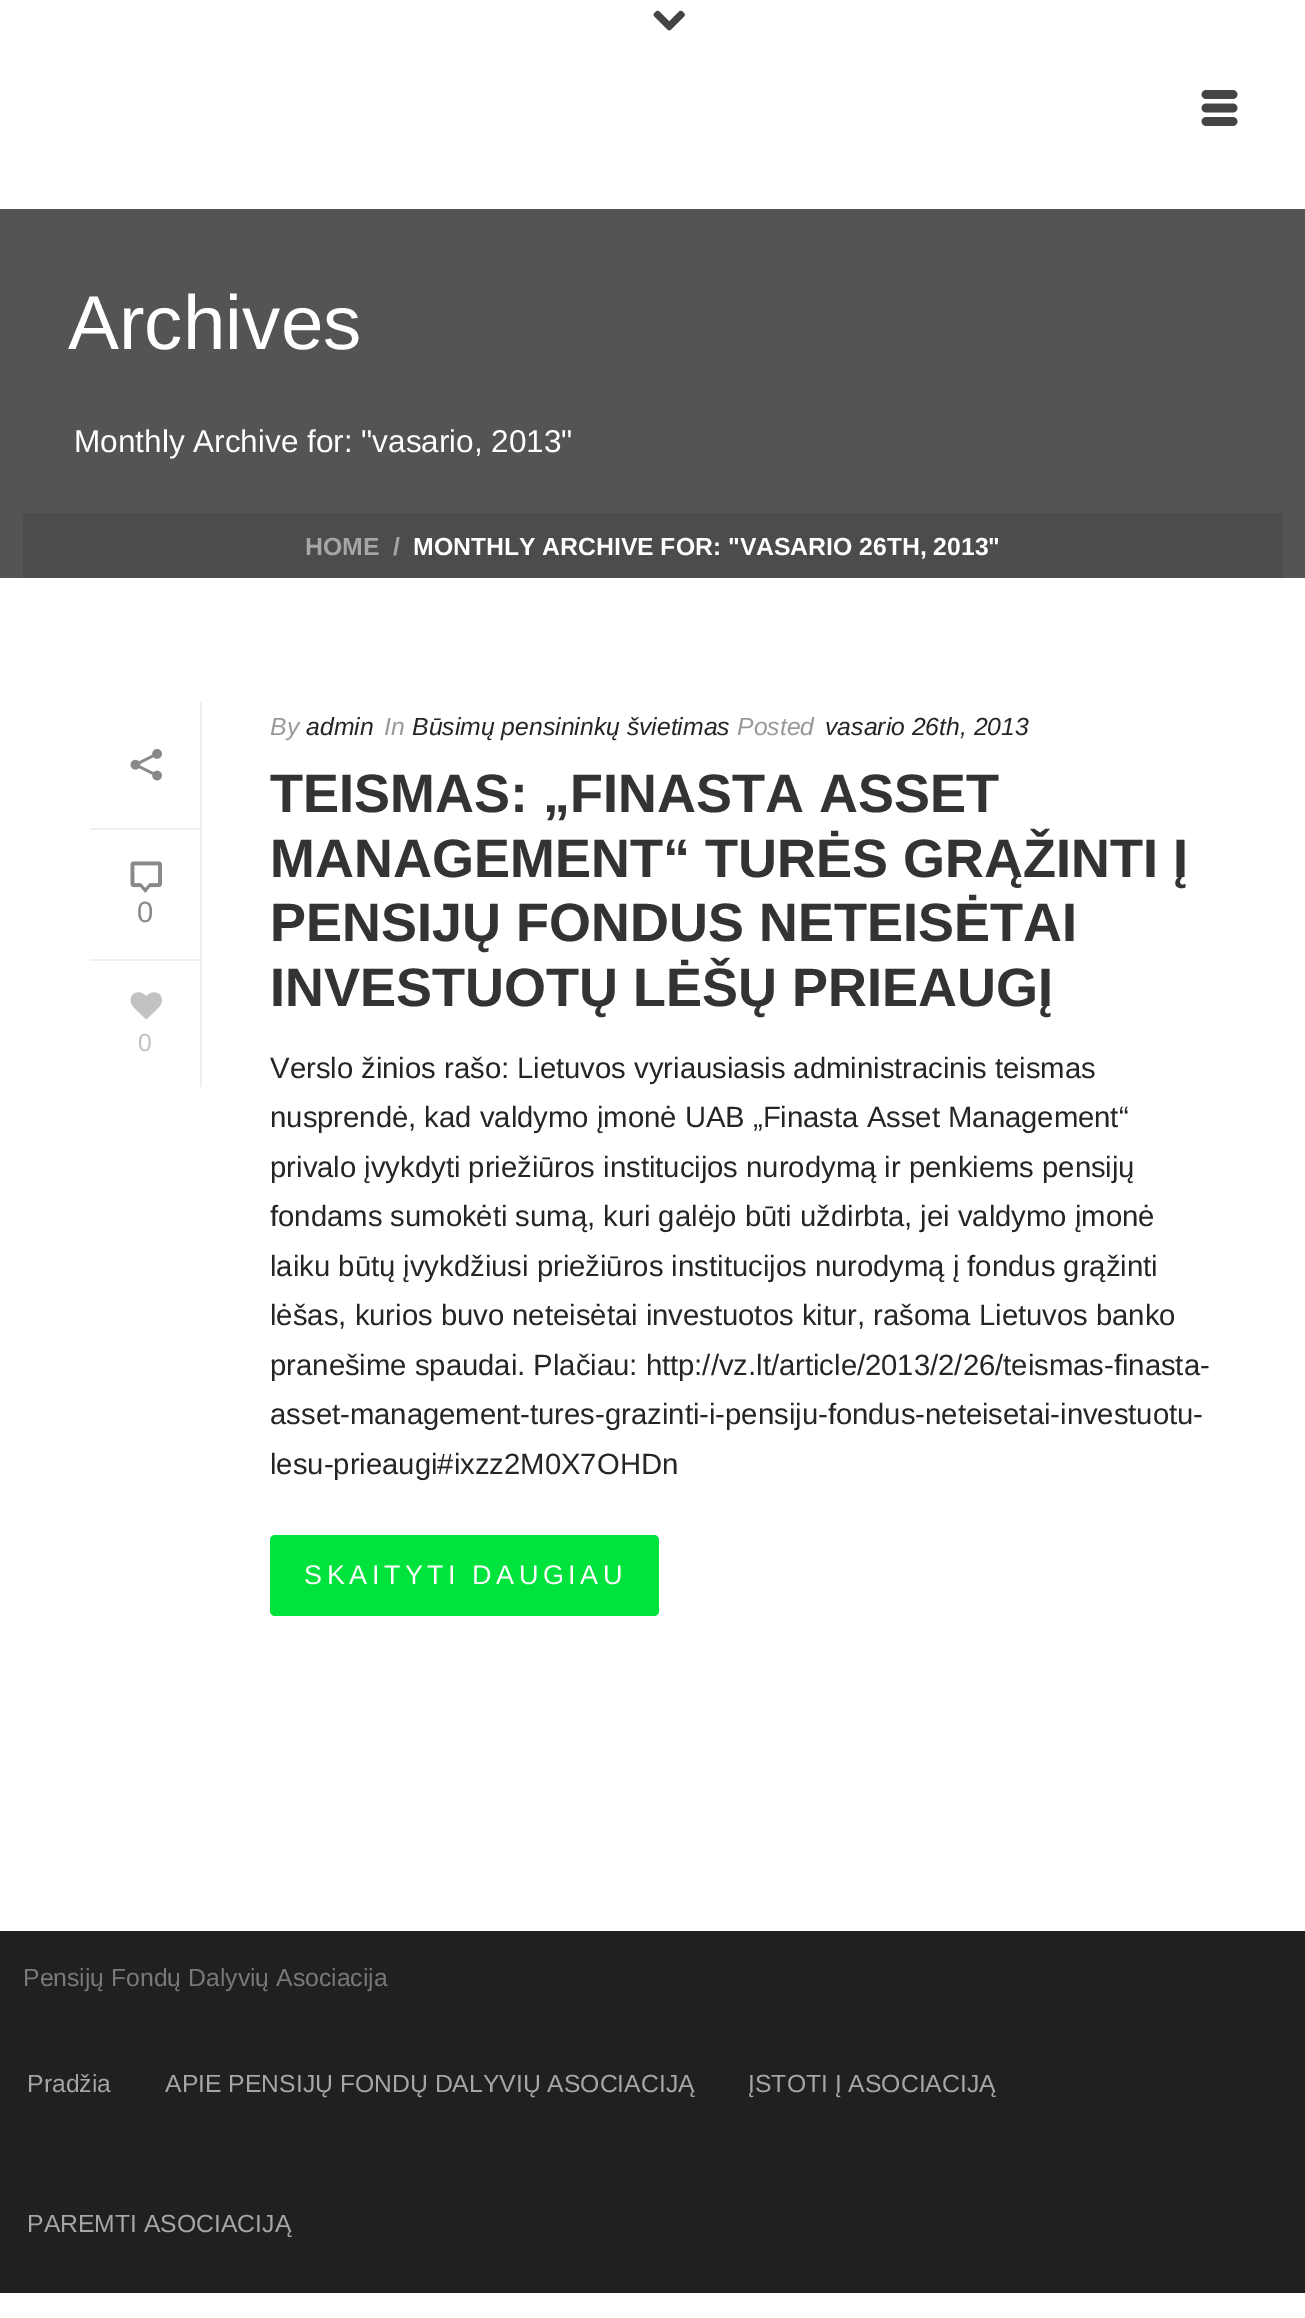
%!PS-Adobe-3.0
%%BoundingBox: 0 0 1305 2318
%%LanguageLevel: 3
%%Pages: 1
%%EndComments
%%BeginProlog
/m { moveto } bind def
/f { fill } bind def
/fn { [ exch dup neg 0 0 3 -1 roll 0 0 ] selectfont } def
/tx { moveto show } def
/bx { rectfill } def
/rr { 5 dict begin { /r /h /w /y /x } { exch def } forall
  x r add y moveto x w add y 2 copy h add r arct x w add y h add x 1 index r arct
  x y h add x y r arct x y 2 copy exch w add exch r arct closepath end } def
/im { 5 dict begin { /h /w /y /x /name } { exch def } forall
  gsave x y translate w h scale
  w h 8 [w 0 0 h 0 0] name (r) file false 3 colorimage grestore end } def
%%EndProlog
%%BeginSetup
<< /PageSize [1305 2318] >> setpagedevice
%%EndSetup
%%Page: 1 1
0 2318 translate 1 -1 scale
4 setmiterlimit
1 setgray
0 0 1305 2318 bx
0.329 setgray
0 209 1305 369 bx
(image0.raw) 653 10 32 21 im
(image1.raw) 1201 90 37 36 im
/LiberationSans-Regular 76.5 fn
1 setgray
(Archives) 68 349 tx
/LiberationSans-Regular 31.5 fn
(Monthly Archive for: "vasario, 2013") 74 452 tx
0.298 setgray
23 513 1260 65 bx
/LiberationSans-Bold 24.75 fn
0.651 setgray
(HOME) 305 555 tx
(/) 393 555 tx
1 setgray
(MONTHLY ARCHIVE FOR: "VASARIO 26TH, 2013") 413 555 tx
0.937 setgray
200 702 2 385 bx
90 828 110 2 bx
(image2.raw) 130 749 32 32 im
90 959 110 2 bx
(image3.raw) 130 861 32 32 im
/LiberationSans-Regular 29.25 fn
0.537 setgray
(0) 137 922 tx
(image4.raw) 130 992 32 28 im
/LiberationSans-Regular 24.75 fn
0.761 setgray
(0) 138 1051 tx
/LiberationSans-Italic 24.75 fn
0.6 setgray
(By) 270 735 tx
0.145 setgray
(admin) 306 735 tx
0.6 setgray
(In) 384 735 tx
0.145 setgray
(Būsimų pensininkų švietimas) 412 735 tx
0.6 setgray
(Posted) 737 735 tx
0.145 setgray
(vasario 26th, 2013) 825 735 tx
/LiberationSans-Bold 54 fn
0.2 setgray
(TEISMAS: „FINASTA ASSET) 270 812 tx
(MANAGEMENT“ TURĖS GRĄŽINTI Į) 270 877 tx
(PENSIJŲ FONDUS NETEISĖTAI) 270 941 tx
(INVESTUOTŲ LĖŠŲ PRIEAUGĮ) 270 1006 tx
/LiberationSans-Regular 29.25 fn
0.145 setgray
(Verslo žinios rašo: Lietuvos vyriausiasis administracinis teismas) 270 1078 tx
(nusprendė, kad valdymo įmonė UAB „Finasta Asset Management“) 270 1127 tx
(privalo įvykdyti priežiūros institucijos nurodymą ir penkiems pensijų) 270 1177 tx
(fondams sumokėti sumą, kuri galėjo būti uždirbta, jei valdymo įmonė) 270 1226 tx
(laiku būtų įvykdžiusi priežiūros institucijos nurodymą į fondus grąžinti) 270 1276 tx
(lėšas, kurios buvo neteisėtai investuotos kitur, rašoma Lietuvos banko) 270 1325 tx
(pranešime spaudai. Plačiau: http://vz.lt/article/2013/2/26/teismas-finasta-) 270 1375 tx
(asset-management-tures-grazinti-i-pensiju-fondus-neteisetai-investuotu-) 270 1424 tx
(lesu-prieaugi#ixzz2M0X7OHDn) 270 1474 tx
0 0.886 0.235 setrgbcolor
270 1535 389 81 5 rr f
/LiberationSans-Regular 27 fn
1 setgray
304 1584 m 4.5 0 (SKAITYTI DAUGIAU) ashow
0.125 setgray
0 1931 1305 362 bx
/LiberationSans-Regular 24.75 fn
0.475 setgray
(Pensijų Fondų Dalyvių Asociacija) 23 1986 tx
0.651 setgray
(Pradžia) 27 2092 tx
(APIE PENSIJŲ FONDŲ DALYVIŲ ASOCIACIJĄ) 165 2092 tx
(ĮSTOTI Į ASOCIACIJĄ) 748 2092 tx
(PAREMTI ASOCIACIJĄ) 27 2232 tx
showpage
%%EOF
